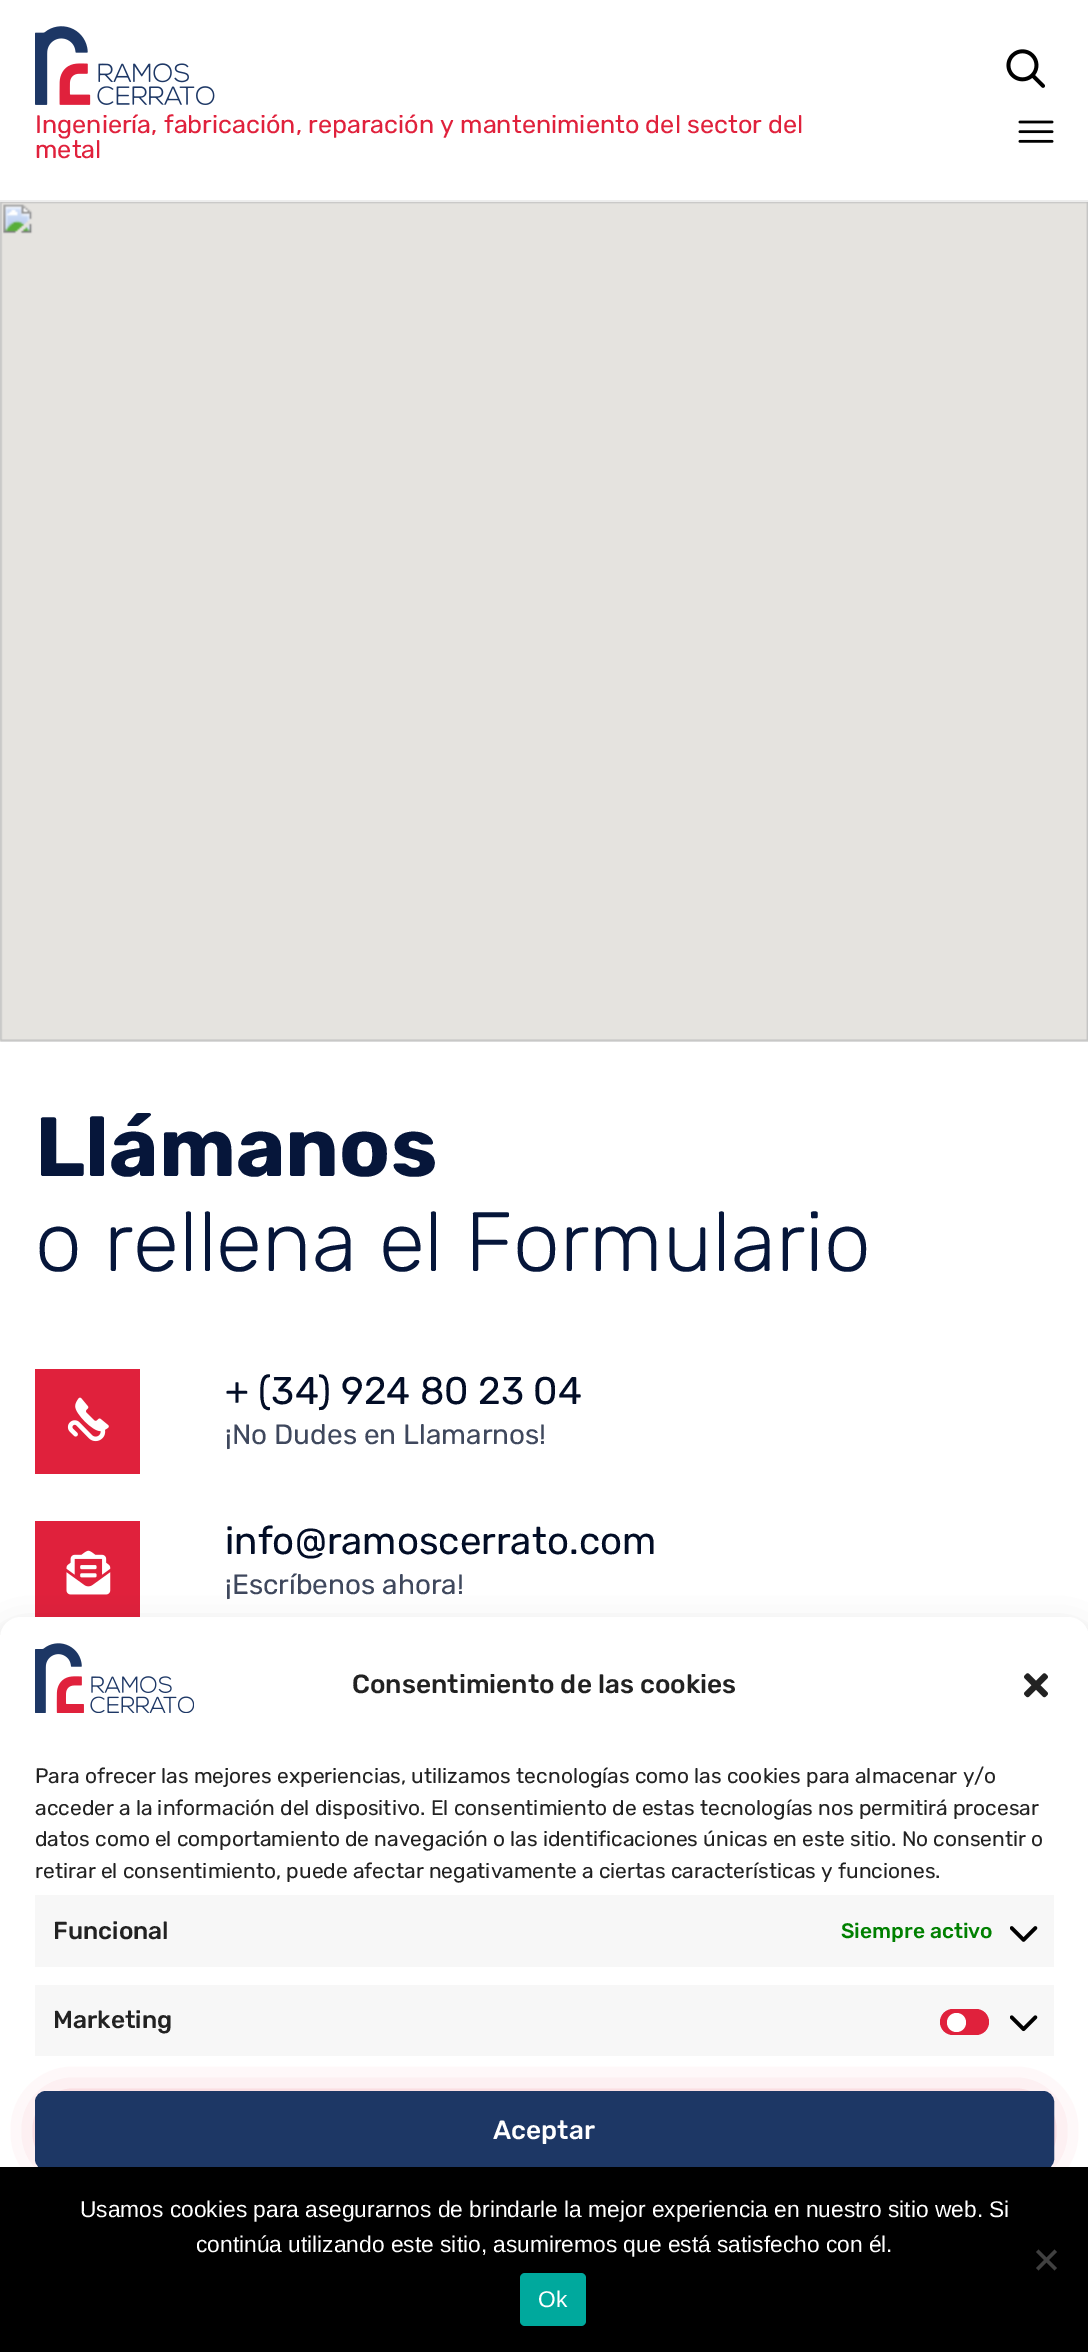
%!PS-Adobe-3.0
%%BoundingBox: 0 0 1088 2352
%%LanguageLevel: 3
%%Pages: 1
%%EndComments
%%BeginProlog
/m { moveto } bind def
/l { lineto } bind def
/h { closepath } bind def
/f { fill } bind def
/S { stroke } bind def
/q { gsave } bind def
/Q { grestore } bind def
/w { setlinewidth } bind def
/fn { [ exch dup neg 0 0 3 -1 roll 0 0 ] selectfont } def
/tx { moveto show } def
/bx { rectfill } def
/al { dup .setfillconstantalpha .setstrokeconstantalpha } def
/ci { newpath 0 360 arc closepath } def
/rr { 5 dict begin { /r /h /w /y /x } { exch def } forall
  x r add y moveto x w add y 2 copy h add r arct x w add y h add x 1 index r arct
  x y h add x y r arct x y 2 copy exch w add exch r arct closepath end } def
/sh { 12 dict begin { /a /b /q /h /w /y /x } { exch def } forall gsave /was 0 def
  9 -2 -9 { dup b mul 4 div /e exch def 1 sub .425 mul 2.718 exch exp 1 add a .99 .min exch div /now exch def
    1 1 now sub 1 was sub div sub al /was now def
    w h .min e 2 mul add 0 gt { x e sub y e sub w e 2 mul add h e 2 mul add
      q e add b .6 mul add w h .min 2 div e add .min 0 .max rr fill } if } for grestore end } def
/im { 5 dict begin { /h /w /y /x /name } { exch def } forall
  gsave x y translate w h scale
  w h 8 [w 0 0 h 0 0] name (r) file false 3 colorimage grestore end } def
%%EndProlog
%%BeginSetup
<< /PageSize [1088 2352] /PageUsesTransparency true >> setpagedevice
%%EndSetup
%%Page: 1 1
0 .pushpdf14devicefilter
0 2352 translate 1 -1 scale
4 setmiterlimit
1 setgray
0 0 1088 2352 bx
0.929 setgray
0 200 1088 2 bx
(image0.raw) 35 26 180 79 im
/Rubik-Regular 25.2 fn
0.878 0.129 0.235 setrgbcolor
(Ingeniería, fabricación, reparación y mantenimiento del sector del) 35 133 tx
(metal) 35 158 tx
(image1.raw) 1006 49 39 39 im
(image2.raw) 1018 120 36 23 im
(image3.raw) 0 202 1088 840 im
/Rubik-Bold 84 fn
0.024 0.086 0.227 setrgbcolor
(Llámanos) 35 1176 tx
/Rubik-Light 84 fn
(o rellena el Formulario) 35 1271 tx
0.878 0.129 0.235 setrgbcolor
35 1369 105 105 bx
(image4.raw) 67 1397 42 45 im
35 1521 105 96 bx
(image5.raw) 66 1550 45 45 im
/Rubik-Regular 38.5 fn
0.008 0.051 0.149 setrgbcolor
(+ \(34\) 924 80 23 04) 225 1404 tx
/Rubik-Regular 28 fn
0.247 0.282 0.365 setrgbcolor
(¡No Dudes en Llamarnos!) 225 1444 tx
/Rubik-Regular 38.5 fn
0.008 0.051 0.149 setrgbcolor
(info@ramoscerrato.com) 225 1554 tx
/Rubik-Regular 28 fn
0.247 0.282 0.365 setrgbcolor
(¡Escríbenos ahora!) 225 1594 tx
0 setgray
0 1628 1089 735 21 5 0.23 sh
0 1635 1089 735 21 17.5 0.19 sh
1 setgray
0 1617 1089 735 21 rr f
(image6.raw) 35 1643 159 70 im
/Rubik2-Light 26.25 fn
0.133 setgray
(Consentimiento de las cookies) 352 1693 tx
(image7.raw) 1024 1673 24 25 im
/Rubik-Regular 21 fn
(Para ofrecer las mejores experiencias, utilizamos tecnologías como las cookies para almacenar y/o) 35 1783 tx
(acceder a la información del dispositivo. El consentimiento de estas tecnologías nos permitirá procesar) 35 1815 tx
(datos como el comportamiento de navegación o las identificaciones únicas en este sitio. No consentir o) 35 1846 tx
(retirar el consentimiento, puede afectar negativamente a ciertas características y funciones.) 35 1878 tx
0.969 setgray
35 1895 1019 72 bx
/Rubik2-Light 24.5 fn
0.133 setgray
(Funcional) 53 1939 tx
/Rubik2-Light 21 fn
0 0.502 0 setrgbcolor
(Siempre activo) 841 1938 tx
(image8.raw) 1010 1926 28 16 im
0.969 setgray
35 1985 1019 71 bx
/Rubik2-Light 24.5 fn
0.133 setgray
(Marketing) 53 2028 tx
0.878 0.129 0.235 setrgbcolor
940 2009 49 26 13 rr f
1 setgray
956.5 2022.5 9.5 ci f
(image9.raw) 1010 2015 28 17 im
0.878 0.129 0.235 setrgbcolor
60 2116 969 30 0 22 1 sh
0.114 0.216 0.396 setrgbcolor
36 2092 1017 77 10 rr q f Q
2 w
S
/Rubik2-Light 26.25 fn
1 setgray
(Aceptar) 493 2139 tx
0 setgray
0 2167 1088 185 bx
/LiberationSans-Regular 22.75 fn
1 setgray
(Usamos cookies para asegurarnos de brindarle la mejor experiencia en nuestro sitio web. Si) 80 2217 tx
(continúa utilizando este sitio, asumiremos que está satisfecho con él.) 196 2252 tx
0.251 setgray
1054.5 2249.5 m 1057 2252 l 1038.5 2270.5 l 1036 2268 l h f
1036 2252 m 1038.5 2249.5 l 1057 2268 l 1054.5 2270.5 l h f
0 0.663 0.616 setrgbcolor
520 2273 66 53 5 rr f
1 setgray
(Ok) 538 2307 tx
.poppdf14devicefilter showpage
%%EOF
